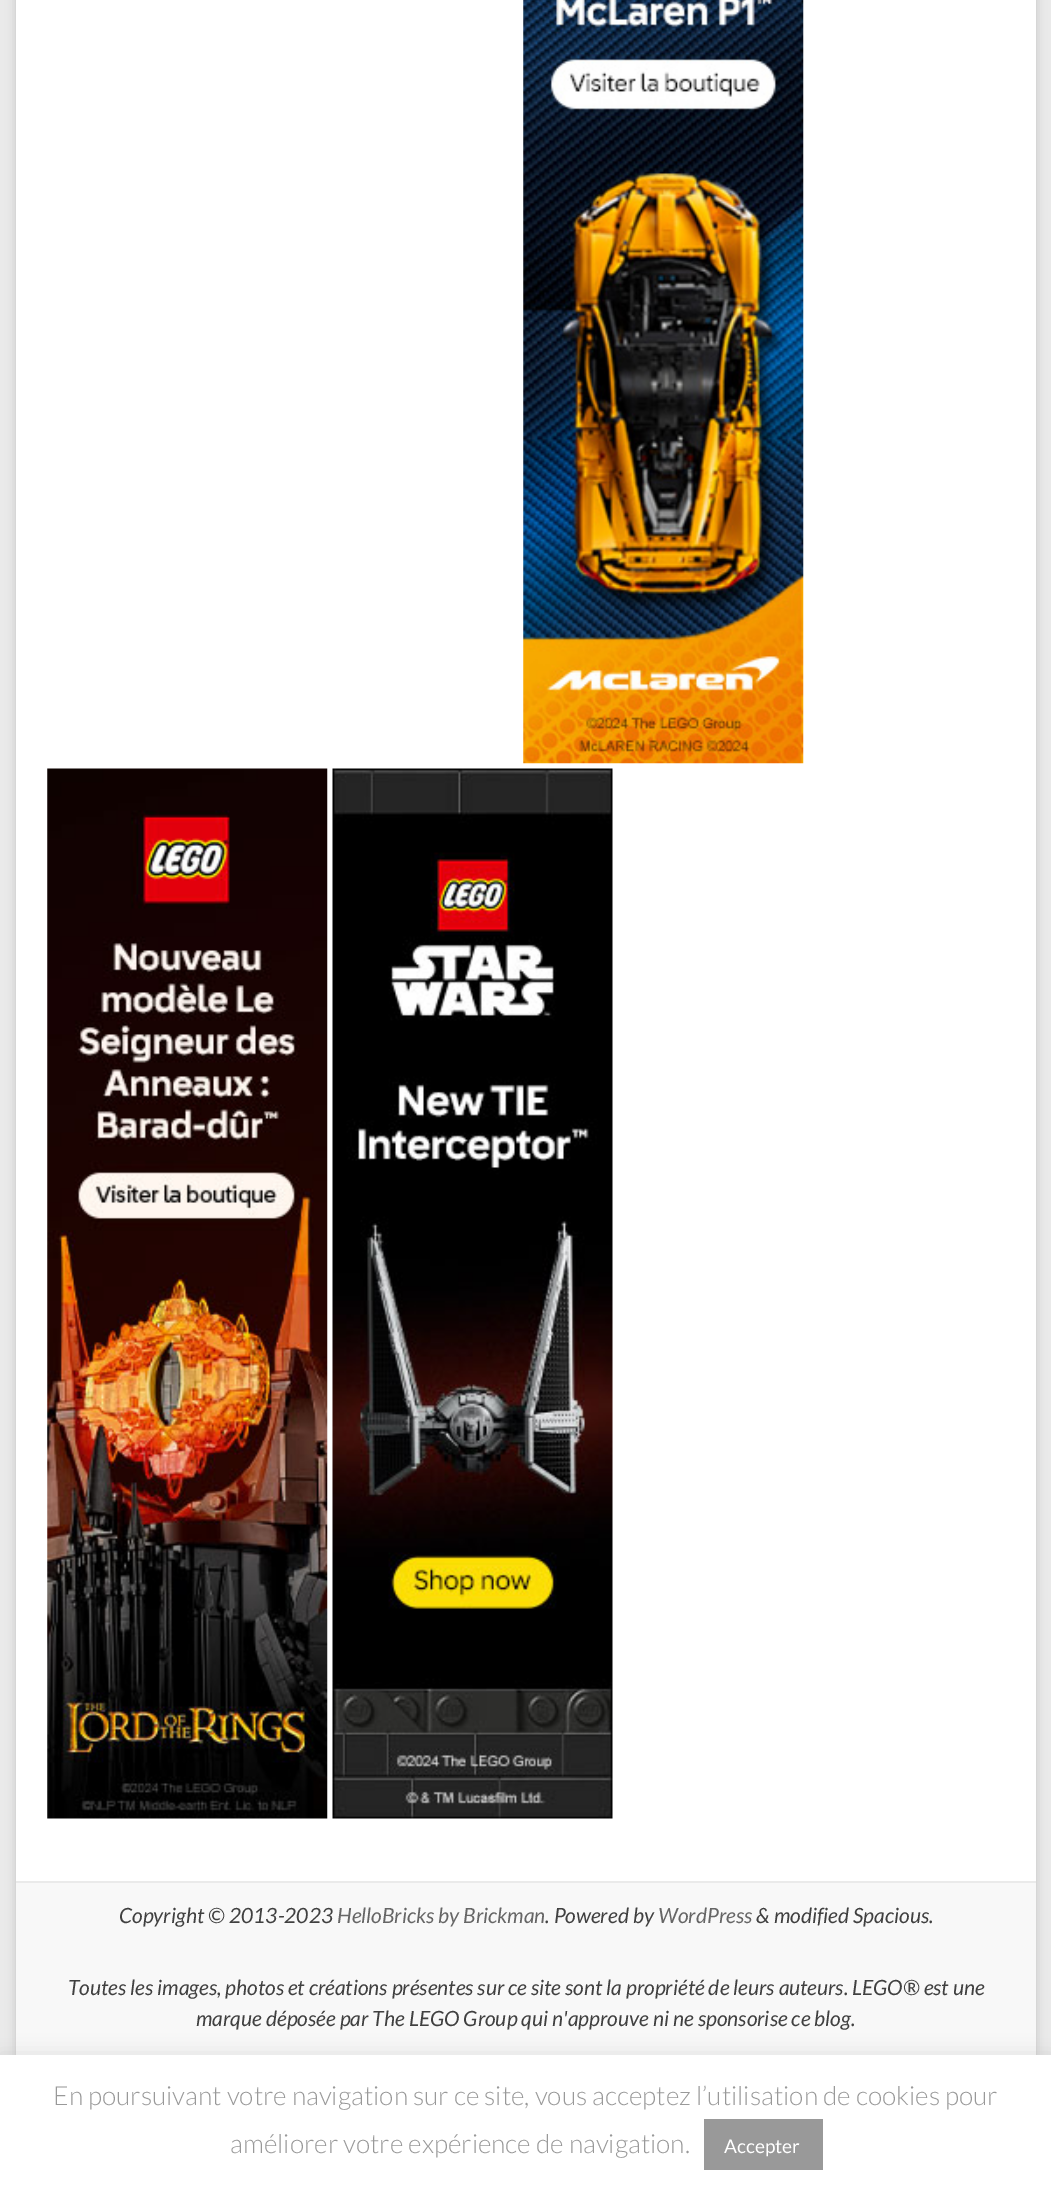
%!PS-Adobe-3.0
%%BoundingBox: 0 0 1051 2190
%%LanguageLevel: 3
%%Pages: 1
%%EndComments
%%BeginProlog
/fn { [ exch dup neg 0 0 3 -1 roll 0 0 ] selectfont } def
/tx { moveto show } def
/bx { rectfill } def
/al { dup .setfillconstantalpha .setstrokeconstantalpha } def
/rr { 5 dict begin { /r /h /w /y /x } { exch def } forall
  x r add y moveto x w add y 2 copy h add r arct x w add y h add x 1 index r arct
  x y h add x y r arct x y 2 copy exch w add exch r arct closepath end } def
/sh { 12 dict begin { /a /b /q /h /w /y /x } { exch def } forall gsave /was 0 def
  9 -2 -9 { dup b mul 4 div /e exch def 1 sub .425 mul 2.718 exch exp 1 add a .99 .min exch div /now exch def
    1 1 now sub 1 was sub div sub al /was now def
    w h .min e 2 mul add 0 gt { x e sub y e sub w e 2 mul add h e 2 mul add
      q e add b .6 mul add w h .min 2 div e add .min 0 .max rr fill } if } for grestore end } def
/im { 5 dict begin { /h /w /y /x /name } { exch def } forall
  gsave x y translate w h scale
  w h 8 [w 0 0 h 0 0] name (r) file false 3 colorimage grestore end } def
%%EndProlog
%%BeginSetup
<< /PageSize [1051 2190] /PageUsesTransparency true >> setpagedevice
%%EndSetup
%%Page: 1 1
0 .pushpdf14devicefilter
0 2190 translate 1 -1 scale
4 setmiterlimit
0.918 setgray
0 0 1051 2190 bx
0.392 setgray
16 -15 1020 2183 0 5 0.3 sh
1 setgray
16 0 1020 1881 bx
(image0.raw) 523 0 281 764 im
(image1.raw) 47 768 281 1051 im
(image2.raw) 332 768 281 1051 im
0.973 setgray
16 1883 1020 172 bx
0.918 setgray
16 1881 1020 2 bx
/Lato-Italic 21 fn
0.251 setgray
(Copyright © 2013-2023) 119 1923 tx
0.4 setgray
(HelloBricks by Brickman) 337 1923 tx
0.251 setgray
(. Powered by) 545 1923 tx
0.4 setgray
(WordPress) 658 1923 tx
0.251 setgray
(& modified Spacious.) 756 1923 tx
(Toutes les images, photos et créations présentes sur ce site sont la propriété de leurs auteurs. LEGO® est une) 68 1995 tx
(marque déposée par The LEGO Group qui n'approuve ni ne sponsorise ce blog.) 196 2026 tx
0.675 0.671 0.671 setrgbcolor
0 2053 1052 136 0 9 0.3 sh
1 setgray
0 2055 1051 135 bx
/Lato-Light 26.25 fn
0.6 setgray
(En poursuivant votre navigation sur ce site, vous acceptez l’utilisation de cookies pour) 53 2105 tx
(améliorer votre expérience de navigation.) 230 2153 tx
704 2119 119 51 bx
/Lato-Regular 19 fn
1 setgray
(Accepter) 724 2153 tx
.poppdf14devicefilter showpage
%%EOF
